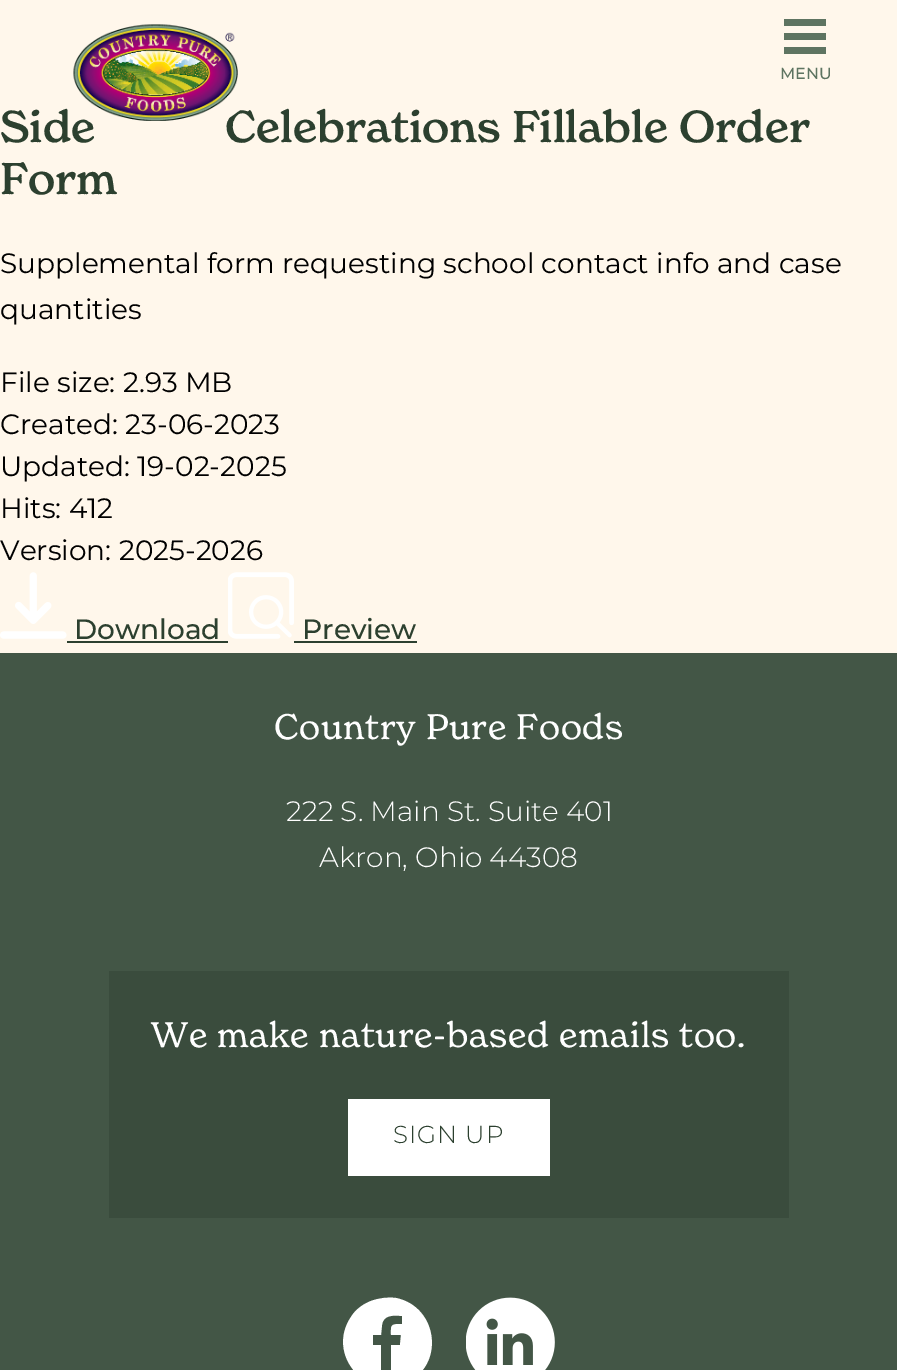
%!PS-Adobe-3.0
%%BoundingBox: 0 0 897 1370
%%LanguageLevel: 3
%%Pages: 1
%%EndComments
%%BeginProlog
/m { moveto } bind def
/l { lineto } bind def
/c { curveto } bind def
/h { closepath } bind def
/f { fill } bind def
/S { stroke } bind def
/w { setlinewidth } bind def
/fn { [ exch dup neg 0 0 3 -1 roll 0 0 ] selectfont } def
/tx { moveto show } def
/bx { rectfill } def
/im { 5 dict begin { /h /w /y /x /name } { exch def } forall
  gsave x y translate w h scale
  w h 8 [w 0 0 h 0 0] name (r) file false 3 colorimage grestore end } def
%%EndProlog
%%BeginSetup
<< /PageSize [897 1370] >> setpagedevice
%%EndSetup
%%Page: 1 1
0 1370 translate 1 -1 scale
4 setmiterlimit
1 0.969 0.922 setrgbcolor
0 0 897 1370 bx
/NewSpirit-Medium 43.75 fn
0.173 0.251 0.184 setrgbcolor
(Side) 0 142 tx
(Celebrations Fillable Order) 225 142 tx
1 0.969 0.922 setrgbcolor
21 w
156 19 m 207 19 248.5 43 248.5 72.5 c 248.5 102 207 126 156 126 c 104.5 126 63 102 63 72.5 c 63 43 104.5 19 156 19 c h S
(image0.raw) 73 24 165 97 im
0.369 0.455 0.38 setrgbcolor
784 33 42 7 bx
784 19 42 7 bx
784 47 42 7 bx
/Montserrat-Medium 16 fn
(MENU) 780 79 tx
/NewSpirit-Medium 43.75 fn
0.173 0.251 0.184 setrgbcolor
(Form) 0 194 tx
/Montserrat-Regular 28 fn
0 setgray
(Supplemental form requesting school contact info and case) 0 273 tx
(quantities) 0 319 tx
(File size: 2.93 MB) 0 392 tx
(Created: 23-06-2023) 0 434 tx
(Updated: 19-02-2025) 0 476 tx
(Hits: 412) 0 518 tx
(Version: 2025-2026) 0 560 tx
(image1.raw) 0 572 67 67 im
/Montserrat-Medium 28 fn
0.173 0.251 0.184 setrgbcolor
(Download) 74 639 tx
67 641 161 2 bx
(image2.raw) 228 572 66 67 im
(Preview) 302 639 tx
294 641 123 2 bx
0.263 0.337 0.275 setrgbcolor
0 653 897 717 bx
/NewSpirit-Regular 35 fn
1 setgray
274 739 m 0.7 0 (Country Pure Foods) ashow
/Montserrat-Light 28 fn
(222 S. Main St. Suite 401) 286 821 tx
(Akron, Ohio 44308) 319 867 tx
0.227 0.298 0.239 setrgbcolor
109 971 680 247 bx
/NewSpirit-Regular 35 fn
1 setgray
151 1047 m 0.7 0 (We make nature-based emails too.) ashow
348 1099 202 77 bx
/Montserrat-Light 24.5 fn
0.173 0.251 0.184 setrgbcolor
393 1143 m 1 0 (SIGN UP) ashow
1 setgray
381 1335 m 382 1325 l 383 1315 393 1315 402 1316 c 402 1324 l 390 1324 391 1325 391 1335 c 401 1335 l 400 1345 l 391 1345 l 391 1370 l 381 1370 l 381 1345 l 373 1345 l 373 1335 l h 405 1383 m 445 1367 439 1307 396 1298 c 388 1297 379 1298 371 1301 c 363 1304 355 1310 351 1317 c 326 1354 365 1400 405 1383 c h f
(image3.raw) 466 1297 89 73 im
showpage
%%EOF
